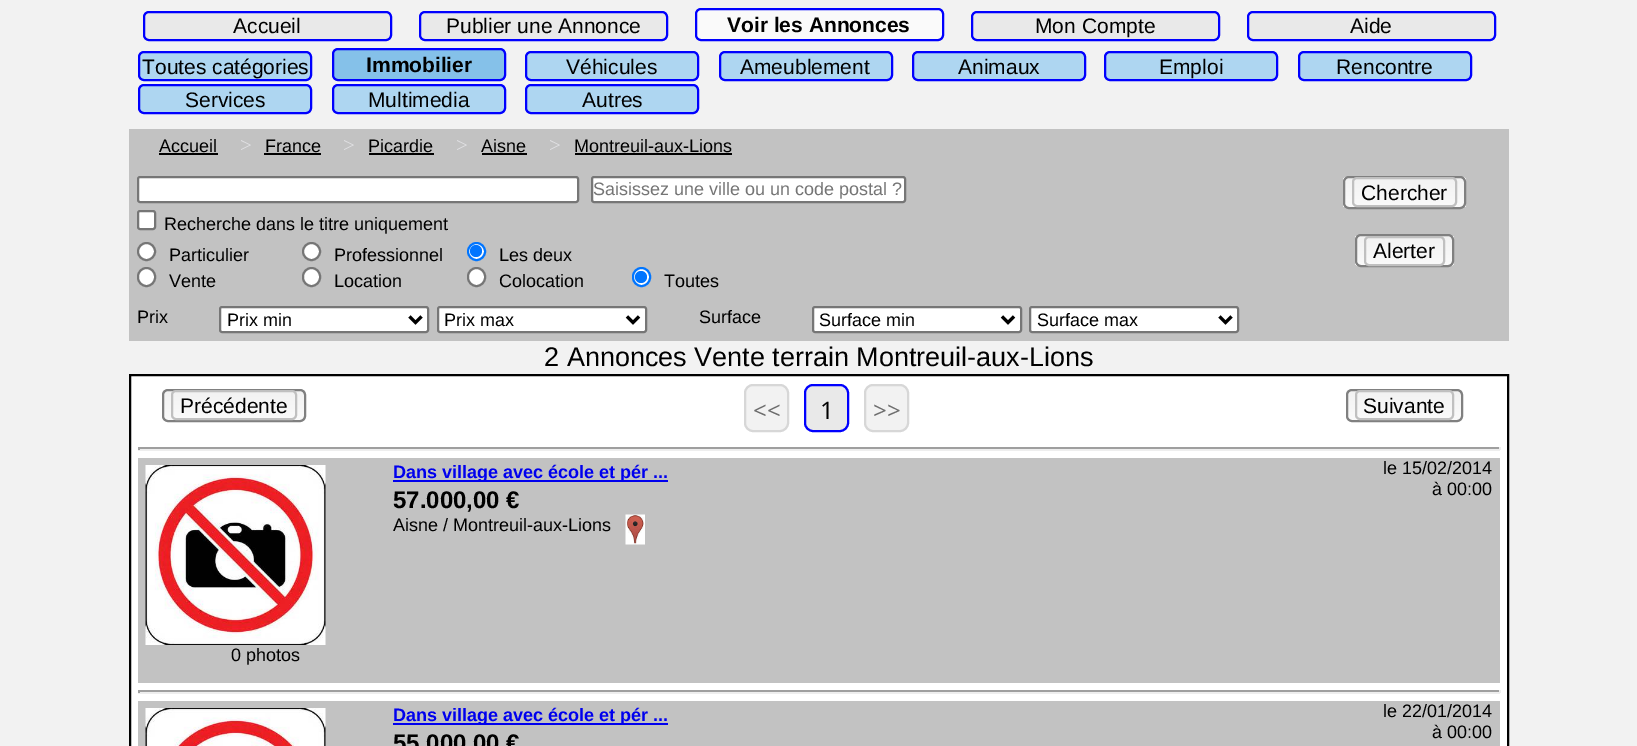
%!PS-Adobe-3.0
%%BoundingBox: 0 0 1637 746
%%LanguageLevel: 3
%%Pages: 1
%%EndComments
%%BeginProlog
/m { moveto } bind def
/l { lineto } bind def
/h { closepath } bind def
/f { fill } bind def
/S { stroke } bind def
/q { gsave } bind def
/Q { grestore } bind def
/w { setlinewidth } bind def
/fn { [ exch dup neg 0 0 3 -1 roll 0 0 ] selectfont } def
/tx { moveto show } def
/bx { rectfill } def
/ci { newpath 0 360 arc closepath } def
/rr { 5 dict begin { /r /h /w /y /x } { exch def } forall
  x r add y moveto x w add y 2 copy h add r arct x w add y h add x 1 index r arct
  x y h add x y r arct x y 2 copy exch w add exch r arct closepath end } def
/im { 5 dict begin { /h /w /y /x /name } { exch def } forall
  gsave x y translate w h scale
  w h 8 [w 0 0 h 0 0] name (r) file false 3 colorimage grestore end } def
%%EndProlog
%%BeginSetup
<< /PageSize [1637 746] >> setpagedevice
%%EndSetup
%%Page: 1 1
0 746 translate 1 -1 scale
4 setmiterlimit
0.949 setgray
0 0 1637 746 bx
0.914 setgray
144 12 247 28 5 rr q f Q
0 0 1 setrgbcolor
2 w
S
/LiberationSans-Regular 21 fn
0 setgray
(Accueil) 233 33 tx
0.914 setgray
420 12 247 28 5 rr q f Q
0 0 1 setrgbcolor
S
0 setgray
(Publier une Annonce) 446 33 tx
0.98 setgray
696 9 247 31 5 rr q f Q
0 0 1 setrgbcolor
S
/LiberationSans-Bold 21 fn
0 setgray
(Voir les Annonces) 727 32 tx
0.914 setgray
972 12 247 28 5 rr q f Q
0 0 1 setrgbcolor
S
/LiberationSans-Regular 21 fn
0 setgray
(Mon Compte) 1035 33 tx
0.914 setgray
1248 12 247 28 5 rr q f Q
0 0 1 setrgbcolor
S
0 setgray
(Aide) 1350 33 tx
0.682 0.839 0.945 setrgbcolor
139 52 172 28 5 rr q f Q
0 0 1 setrgbcolor
S
0 setgray
(Toutes catégories) 142 74 tx
0.522 0.757 0.914 setrgbcolor
333 49 172 31 5 rr q f Q
0 0 1 setrgbcolor
S
/LiberationSans-Bold 21 fn
0 setgray
(Immobilier) 366 72 tx
0.682 0.839 0.945 setrgbcolor
526 52 172 28 5 rr q f Q
0 0 1 setrgbcolor
S
/LiberationSans-Regular 21 fn
0 setgray
(Véhicules) 566 74 tx
0.682 0.839 0.945 setrgbcolor
720 52 172 28 5 rr q f Q
0 0 1 setrgbcolor
S
0 setgray
(Ameublement) 740 74 tx
0.682 0.839 0.945 setrgbcolor
913 52 172 28 5 rr q f Q
0 0 1 setrgbcolor
S
0 setgray
(Animaux) 958 74 tx
0.682 0.839 0.945 setrgbcolor
1105 52 172 28 5 rr q f Q
0 0 1 setrgbcolor
S
0 setgray
(Emploi) 1159 74 tx
0.682 0.839 0.945 setrgbcolor
1299 52 172 28 5 rr q f Q
0 0 1 setrgbcolor
S
0 setgray
(Rencontre) 1336 74 tx
0.682 0.839 0.945 setrgbcolor
139 85 172 28 5 rr q f Q
0 0 1 setrgbcolor
S
0 setgray
(Services) 185 107 tx
0.682 0.839 0.945 setrgbcolor
333 85 172 28 5 rr q f Q
0 0 1 setrgbcolor
S
0 setgray
(Multimedia) 368 107 tx
0.682 0.839 0.945 setrgbcolor
526 85 172 28 5 rr q f Q
0 0 1 setrgbcolor
S
0 setgray
(Autres) 582 107 tx
0.761 setgray
129 129 1380 212 bx
/LiberationSans-Regular 18 fn
0 setgray
(Accueil) 159 152 tx
159 153 59 2 bx
/LiberationSerif-Regular 21 fn
0.878 0.878 0.89 setrgbcolor
(>) 240 152 tx
/LiberationSans-Regular 18 fn
0 setgray
(France) 265 152 tx
264 153 57 2 bx
/LiberationSerif-Regular 21 fn
0.878 0.878 0.89 setrgbcolor
(>) 343 152 tx
/LiberationSans-Regular 18 fn
0 setgray
(Picardie) 368 152 tx
369 153 65 2 bx
/LiberationSerif-Regular 21 fn
0.878 0.878 0.89 setrgbcolor
(>) 456 152 tx
/LiberationSans-Regular 18 fn
0 setgray
(Aisne) 481 152 tx
482 153 45 2 bx
/LiberationSerif-Regular 21 fn
0.878 0.878 0.89 setrgbcolor
(>) 549 152 tx
/LiberationSans-Regular 18 fn
0 setgray
(Montreuil-aux-Lions) 574 152 tx
575 153 157 2 bx
1 setgray
592 177 313 25 2 rr q f Q
0.463 setgray
S
0.459 setgray
(Saisissez une ville ou un code postal ?) 593 195 tx
q
1343 176 123 33 6 rr clip newpath
q 1343 177 m 1466 177 l 1466 207 l 1343 207 l h clip newpath
<< /ShadingType 2 /ColorSpace /DeviceRGB /Coords [1404 177 1404 207] /Extend [true true] /Function << /FunctionType 2 /Domain [0 1] /C0 [0.949 0.949 0.949] /C1 [0.98 0.98 0.98] /N 1 >> >> shfill Q
Q
0.502 setgray
1344 177 121 31 5 rr S
0.753 setgray
1353 178 103 28 4 rr S
/LiberationSans-Regular 21 fn
0 setgray
(Chercher) 1361 200 tx
1 setgray
138 177 440 25 2 rr q f Q
0.463 setgray
S
1 setgray
138 211 17 18 2 rr q f Q
0.463 setgray
S
/LiberationSans-Regular 18 fn
0 setgray
(Recherche dans le titre uniquement) 164 230 tx
1 setgray
146.5 251.5 8.5 ci q f Q
0.463 setgray
S
0 setgray
(Particulier) 169 261 tx
1 setgray
311.5 251.5 8.5 ci q f Q
0.463 setgray
S
0 setgray
(Professionnel) 334 261 tx
1 setgray
476.5 251.5 8.5 ci q f Q
0 0.459 1 setrgbcolor
S
476 251 6 ci f
0 setgray
(Les deux) 499 261 tx
q
1355 234 99 33 6 rr clip newpath
q 1355 236 m 1454 236 l 1454 266 l 1355 266 l h clip newpath
<< /ShadingType 2 /ColorSpace /DeviceRGB /Coords [1404 236 1404 266] /Extend [true true] /Function << /FunctionType 2 /Domain [0 1] /C0 [0.949 0.949 0.949] /C1 [0.98 0.98 0.98] /N 1 >> >> shfill Q
Q
0.502 setgray
1356 235 97 31 5 rr S
0.753 setgray
1365 237 79 28 4 rr S
/LiberationSans-Regular 21 fn
0 setgray
(Alerter) 1373 258 tx
1 setgray
138 268 17 18 8.5 rr q f Q
0.463 setgray
S
/LiberationSans-Regular 18 fn
0 setgray
(Vente) 169 287 tx
1 setgray
303 268 17 18 8.5 rr q f Q
0.463 setgray
S
0 setgray
(Location) 334 287 tx
1 setgray
468 268 17 18 8.5 rr q f Q
0.463 setgray
S
0 setgray
(Colocation) 499 287 tx
1 setgray
633 268 17 18 8.5 rr q f Q
0 0.459 1 setrgbcolor
S
641 277 6 ci f
0 setgray
(Toutes) 664 287 tx
(Prix) 137 323 tx
1 setgray
220 307 208 25 2 rr q f Q
0.463 setgray
S
0 setgray
3 w
409.5 316.5 m 415.5 322.5 l 421.5 316.5 l S
(Prix min) 227 326 tx
1 setgray
438 307 208 25 2 rr q f Q
0.463 setgray
2 w
S
0 setgray
3 w
627 316.5 m 633 322.5 l 639 316.5 l S
(Prix max) 444 326 tx
(Surface) 699 323 tx
1 setgray
813 307 208 25 2 rr q f Q
0.463 setgray
2 w
S
0 setgray
3 w
1002 316.5 m 1008 322.5 l 1014 316.5 l S
(Surface min) 819 326 tx
1 setgray
1030 307 208 25 2 rr q f Q
0.463 setgray
2 w
S
0 setgray
3 w
1219.5 316.5 m 1225.5 322.5 l 1231.5 316.5 l S
(Surface max) 1037 326 tx
/LiberationSans-Regular 27 fn
(2 Annonces Vente terrain Montreuil-aux-Lions) 544 366 tx
1 setgray
130 375 m 1508 375 l 1508 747 l 130 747 l h q f Q
0 setgray
2 w
S
q
162 389 144 33 6 rr clip newpath
q 162 390 m 306 390 l 306 420 l 162 420 l h clip newpath
<< /ShadingType 2 /ColorSpace /DeviceRGB /Coords [234 390 234 420] /Extend [true true] /Function << /FunctionType 2 /Domain [0 1] /C0 [0.949 0.949 0.949] /C1 [0.98 0.98 0.98] /N 1 >> >> shfill Q
Q
0.502 setgray
163 390 142 31 5 rr S
0.753 setgray
172 391 124 28 4 rr S
/LiberationSans-Regular 21 fn
0 setgray
(Précédente) 180 413 tx
0.949 setgray
745 385 43 46 8 rr q f Q
0.843 setgray
S
/OpenSans-Regular 24 fn
0.431 setgray
(<<) 753 419 tx
0.914 setgray
805 385 43 46 8 rr q f Q
0 0 1 setrgbcolor
S
0 setgray
(1) 820 419 tx
0.949 setgray
865 385 43 46 8 rr q f Q
0.843 setgray
S
0.431 setgray
(>>) 873 419 tx
q
1346 389 117 33 6 rr clip newpath
q 1346 390 m 1463 390 l 1463 420 l 1346 420 l h clip newpath
<< /ShadingType 2 /ColorSpace /DeviceRGB /Coords [1404 390 1404 420] /Extend [true true] /Function << /FunctionType 2 /Domain [0 1] /C0 [0.949 0.949 0.949] /C1 [0.98 0.98 0.98] /N 1 >> >> shfill Q
Q
0.502 setgray
1347 390 115 31 5 rr S
0.753 setgray
1356 391 97 28 4 rr S
/LiberationSans-Regular 21 fn
0 setgray
(Suivante) 1363 413 tx
0.624 setgray
138 447 1362 2 bx
0.933 setgray
1499 447 2 3 bx
138 449 1362 2 bx
0.624 setgray
138 447 2 3 bx
0.761 setgray
138 458 1362 225 bx
0 0 0.933 setrgbcolor
393 480 275 2 bx
/LiberationSans-Bold 18 fn
(Dans village avec école et pér ...) 393 478 tx
/LiberationSans-Bold 24 fn
0 setgray
(57.000,00 €) 393 508 tx
/LiberationSans-Regular 18 fn
(Aisne / Montreuil-aux-Lions) 393 531 tx
(image0.raw) 625 514 20 31 im
(le 15/02/2014) 1383 474 tx
(à 00:00) 1432 495 tx
(image1.raw) 145 465 181 180 im
(0 photos) 231 661 tx
0.624 setgray
138 690 1362 2 bx
0.933 setgray
1499 690 2 3 bx
138 692 1362 2 bx
0.624 setgray
138 690 2 3 bx
0.761 setgray
138 701 1362 45 bx
(image2.raw) 145 708 181 38 im
0 0 0.933 setrgbcolor
393 723 275 2 bx
/LiberationSans-Bold 18 fn
(Dans village avec école et pér ...) 393 721 tx
/LiberationSans-Bold 24 fn
0 setgray
(55.000,00 €) 393 751 tx
/LiberationSans-Regular 18 fn
(le 22/01/2014) 1383 717 tx
(à 00:00) 1432 738 tx
showpage
%%EOF
